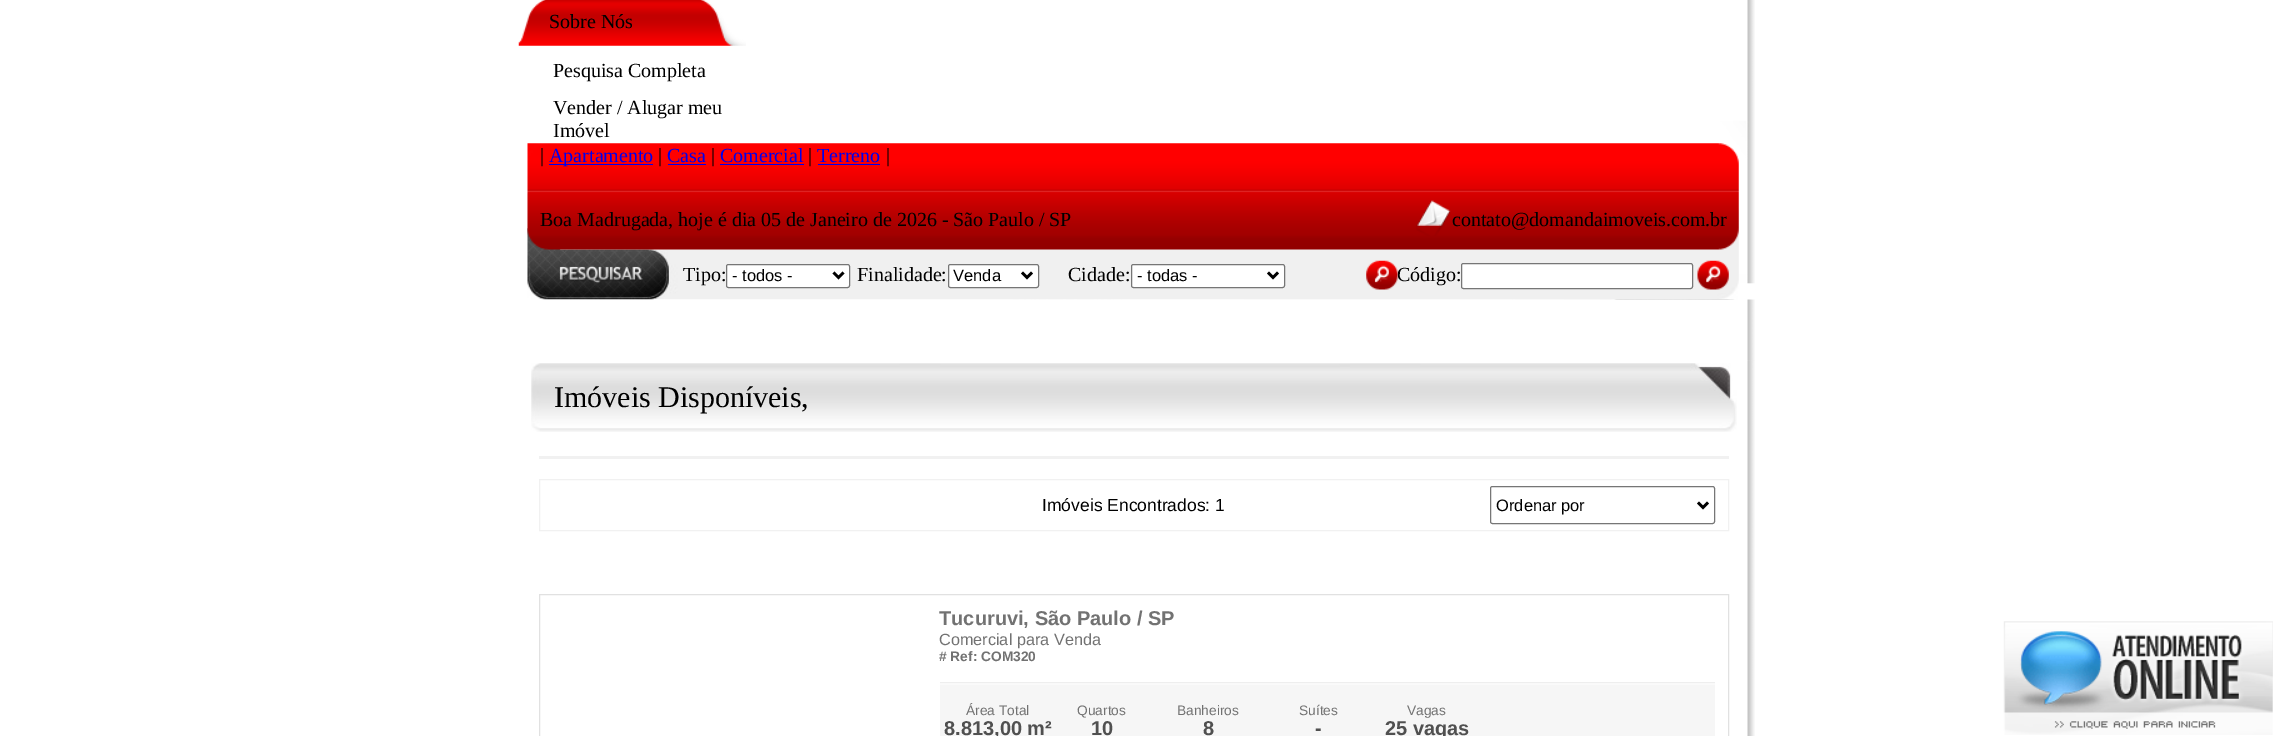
%!PS-Adobe-3.0
%%BoundingBox: 0 0 2273 736
%%LanguageLevel: 3
%%Pages: 1
%%EndComments
%%BeginProlog
/m { moveto } bind def
/l { lineto } bind def
/f { fill } bind def
/S { stroke } bind def
/q { gsave } bind def
/Q { grestore } bind def
/w { setlinewidth } bind def
/fn { [ exch dup neg 0 0 3 -1 roll 0 0 ] selectfont } def
/tx { moveto show } def
/bx { rectfill } def
/rr { 5 dict begin { /r /h /w /y /x } { exch def } forall
  x r add y moveto x w add y 2 copy h add r arct x w add y h add x 1 index r arct
  x y h add x y r arct x y 2 copy exch w add exch r arct closepath end } def
/im { 5 dict begin { /h /w /y /x /name } { exch def } forall
  gsave x y translate w h scale
  w h 8 [w 0 0 h 0 0] name (r) file false 3 colorimage grestore end } def
%%EndProlog
%%BeginSetup
<< /PageSize [2273 736] >> setpagedevice
%%EndSetup
%%Page: 1 1
0 736 translate 1 -1 scale
4 setmiterlimit
1 setgray
0 0 2273 736 bx
(image0.raw) 889 0 866 300 im
(image1.raw) 518 0 228 46 im
/LiberationSerif-Regular 20 fn
0 setgray
(Sobre Nós) 549 28 tx
(Pesquisa Completa) 553 77 tx
(Vender / Alugar meu) 553 114 tx
(Imóvel) 553 137 tx
(image2.raw) 527 193 1212 107 im
(image3.raw) 527 143 1212 107 im
(|) 540 162 tx
0 0 0.933 setrgbcolor
549 164 104 1 bx
(Apartamento) 549 162 tx
0 setgray
(|) 658 162 tx
0 0 0.933 setrgbcolor
(Casa) 667 162 tx
668 164 38 1 bx
0 setgray
(|) 711 162 tx
0 0 0.933 setrgbcolor
(Comercial) 720 162 tx
720 164 84 1 bx
0 setgray
(|) 808 162 tx
0 0 0.933 setrgbcolor
(Terreno) 817 162 tx
818 164 62 1 bx
0 setgray
(|) 886 162 tx
(Boa Madrugada, hoje é dia 05 de Janeiro de 2026 - São Paulo / SP) 540 226 tx
(image4.raw) 1416 200 35 36 im
(contato@domandaimoveis.com.br) 1452 226 tx
(image5.raw) 559 265 84 19 im
(Tipo:) 683 281 tx
1 setgray
726.5 264.5 123 23 2 rr q f Q
0.463 setgray
S
0 setgray
2.5 w
833.5 272.5 m 838.5 277.5 l 843.5 272.5 l S
/LiberationSans-Regular 16.5 fn
(- todos -) 732 281 tx
/LiberationSerif-Regular 20 fn
(Finalidade:) 857 281 tx
1 setgray
948.5 264.5 90 23 2 rr q f Q
0.463 setgray
1 w
S
0 setgray
2.5 w
1022 272.5 m 1027 277.5 l 1032 272.5 l S
/LiberationSans-Regular 16.5 fn
(Venda) 953 281 tx
/LiberationSerif-Regular 20 fn
(Cidade:) 1068 281 tx
1 setgray
1131.5 264.5 153 23 2 rr q f Q
0.463 setgray
1 w
S
0 setgray
2.5 w
1268 272.5 m 1273 277.5 l 1278 272.5 l S
/LiberationSans-Regular 16.5 fn
(- todas -) 1137 281 tx
/LiberationSerif-Regular 20 fn
(Código:) 1397 281 tx
(image6.raw) 1366 260 32 30 im
1 setgray
1461.5 263.5 231 25 2 rr q f Q
0.463 setgray
1 w
S
(image7.raw) 1697 260 32 30 im
(image8.raw) 542 299 1213 62 im
(image9.raw) 1747 360 8 376 im
(image10.raw) 531 363 1206 69 im
/LiberationSerif-Regular 30 fn
0 setgray
(Imóveis Disponíveis,) 554 407 tx
0.945 setgray
539 456 1190 3 bx
539.5 479.5 1189 51 rectstroke
/LiberationSans-Regular 17.5 fn
0 setgray
(Imóveis Encontrados: 1) 1042 511 tx
0.463 setgray
1490.5 486.5 224 37 2 rr S
0 setgray
2.5 w
1698 502.5 m 1703 507.5 l 1708 502.5 l S
/LiberationSans-Regular 16.5 fn
(Ordenar por) 1496 511 tx
0.882 setgray
1 w
539.5 594.5 1189 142 rectstroke
/LiberationSans-Bold 20 fn
0.447 setgray
(Tucuruvi, São Paulo / SP) 939 625 tx
/LiberationSans-Regular 16.25 fn
(Comercial para Venda) 939 645 tx
/LiberationSans-Bold 13.75 fn
(# Ref: COM320) 939 661 tx
(image11.raw) 940 682 775 54 im
/LiberationSans-Regular 13.75 fn
(Área Total) 966 715 tx
/LiberationSans-Bold 20 fn
0.314 setgray
(8.813,00 m²) 944 735 tx
/LiberationSans-Regular 13.75 fn
0.447 setgray
(Quartos) 1077 715 tx
/LiberationSans-Bold 20 fn
0.314 setgray
(10) 1091 735 tx
/LiberationSans-Regular 13.75 fn
0.447 setgray
(Banheiros) 1177 715 tx
/LiberationSans-Bold 20 fn
0.314 setgray
(8) 1203 735 tx
/LiberationSans-Regular 13.75 fn
0.447 setgray
(Suítes) 1299 715 tx
/LiberationSans-Bold 20 fn
0.314 setgray
(-) 1315 735 tx
/LiberationSans-Regular 13.75 fn
0.447 setgray
(Vagas) 1407 715 tx
/LiberationSans-Bold 20 fn
0.314 setgray
(25 vagas) 1385 735 tx
(image12.raw) 2003 621 270 114 im
showpage
%%EOF
